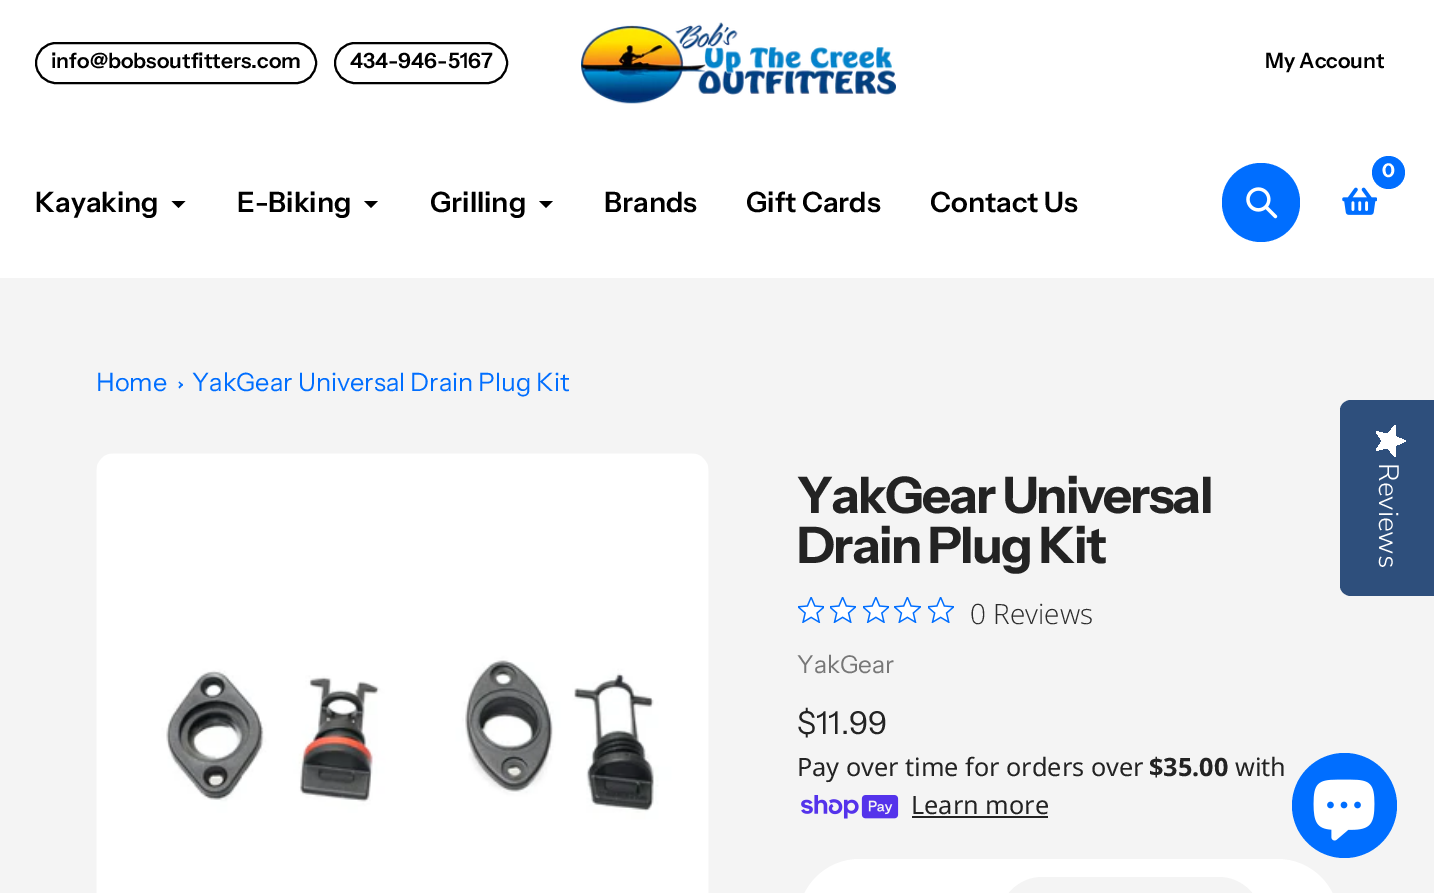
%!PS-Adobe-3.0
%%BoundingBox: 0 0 1434 893
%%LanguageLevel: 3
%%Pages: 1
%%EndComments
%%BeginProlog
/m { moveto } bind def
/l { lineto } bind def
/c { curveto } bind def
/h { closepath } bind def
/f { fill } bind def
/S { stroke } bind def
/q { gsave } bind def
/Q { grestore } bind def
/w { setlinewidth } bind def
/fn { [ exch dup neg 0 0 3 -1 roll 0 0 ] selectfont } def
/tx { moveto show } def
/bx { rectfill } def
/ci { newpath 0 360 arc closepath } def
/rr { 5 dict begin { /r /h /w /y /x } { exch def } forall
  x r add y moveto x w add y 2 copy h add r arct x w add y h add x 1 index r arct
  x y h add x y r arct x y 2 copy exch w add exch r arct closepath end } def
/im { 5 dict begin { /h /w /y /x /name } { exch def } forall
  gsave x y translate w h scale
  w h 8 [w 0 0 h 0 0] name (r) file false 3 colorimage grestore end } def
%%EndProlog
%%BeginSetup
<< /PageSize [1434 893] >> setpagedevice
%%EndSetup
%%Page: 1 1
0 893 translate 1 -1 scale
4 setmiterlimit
0.957 setgray
0 0 1434 893 bx
1 setgray
0 0 1434 278 bx
0 setgray
2 w
36 43 280 40 20 rr S
/InstrumentSans-SemiBold 21 fn
(info@bobsoutfitters.com) 51 68 tx
335 43 172 40 20 rr S
(434-946-5167) 350 68 tx
(image0.raw) 581 22 315 82 im
(My Account) 1265 68 tx
0 0.431 1 setrgbcolor
1222 163 78 79 39 rr f
(image1.raw) 1246 187 32 32 im
(image2.raw) 1342 187 35 28 im
1388.5 172.5 16.5 ci f
/InstrumentSans-Bold 19 fn
1 setgray
(0) 1382 177 tx
/InstrumentSans-SemiBold 28 fn
0 setgray
(Kayaking) 35 212 tx
185.5 201 m 178.5 208 l 171.5 201 l f
(E-Biking) 237 212 tx
378 201 m 371 208 l 364 201 l f
(Grilling) 430 212 tx
553 201 m 546 208 l 539 201 l f
(Brands) 604 212 tx
(Gift Cards) 746 212 tx
(Contact Us) 930 212 tx
/InstrumentSans-Regular 25.25 fn
0 0.431 1 setrgbcolor
(Home) 96 391 tx
179.5 381.5 m 183 385 l 182 386 l 178.5 382.5 l h f
182 383.5 m 183 385 l 179.5 388.5 l 178.5 387 l h f
(YakGear Universal Drain Plug Kit) 192 391 tx
(image3.raw) 96 453 613 440 im
/InstrumentSans-Bold 50.5 fn
0.137 setgray
797 513 m -1.75 0 (YakGear Universal) ashow
797 563 m -1.75 0 (Drain Plug Kit) ashow
(image4.raw) 798 597 26 26 im
(image5.raw) 830 597 26 26 im
(image6.raw) 863 597 26 26 im
(image7.raw) 894 597 27 26 im
(image5.raw) 928 597 26 26 im
/OpenSans-Light 28 fn
0.173 setgray
(0 Reviews) 970 624 tx
/InstrumentSans-Regular 24.5 fn
0.467 setgray
(YakGear) 797 673 tx
/InstrumentSans-Regular 31.5 fn
0.137 setgray
($11.99) 797 734 tx
/NotoSans-Regular 25.25 fn
(Pay over time for orders over) 797 776 tx
/NotoSans-Bold 25.25 fn
($35.00) 1149 776 tx
/NotoSans-Regular 25.25 fn
(with) 1235 776 tx
(image8.raw) 801 795 98 24 im
(Learn more) 911 814 tx
912 816 136 2 bx
1 setgray
798 859 541 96 61.5 rr f
0.957 setgray
999 877 263 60 43.5 rr f
0.18 0.31 0.486 setrgbcolor
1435 400 m 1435 596 l 1351 596 l 1345 596 1340 591 1340 586 c 1340 410 l 1340 405 1345 400 1351 400 c h f
q 1382 441 m 1376 450.5 l 1387.5 448 l 1395 457 l 1395.5 445.5 l 1406 441 l 1395.5 436.5 l 1395 425.5 l 1387.5 434 l 1376 431.5 l h clip newpath
<< /ShadingType 2 /ColorSpace /DeviceRGB /Coords [1406 425 1406 457] /Extend [true true] /Function << /FunctionType 2 /Domain [0 1] /C0 [1 1 1] /C1 [1 1 1] /N 1 >> >> shfill Q
/NunitoSans-Light 28 fn
1 setgray
q 1379 463 translate 90 rotate 0 0 m (Reviews) show Q
0 0.431 1 setrgbcolor
1344.5 805.5 52.5 ci f
(image9.raw) 1313 779 62 62 im
showpage
%%EOF
